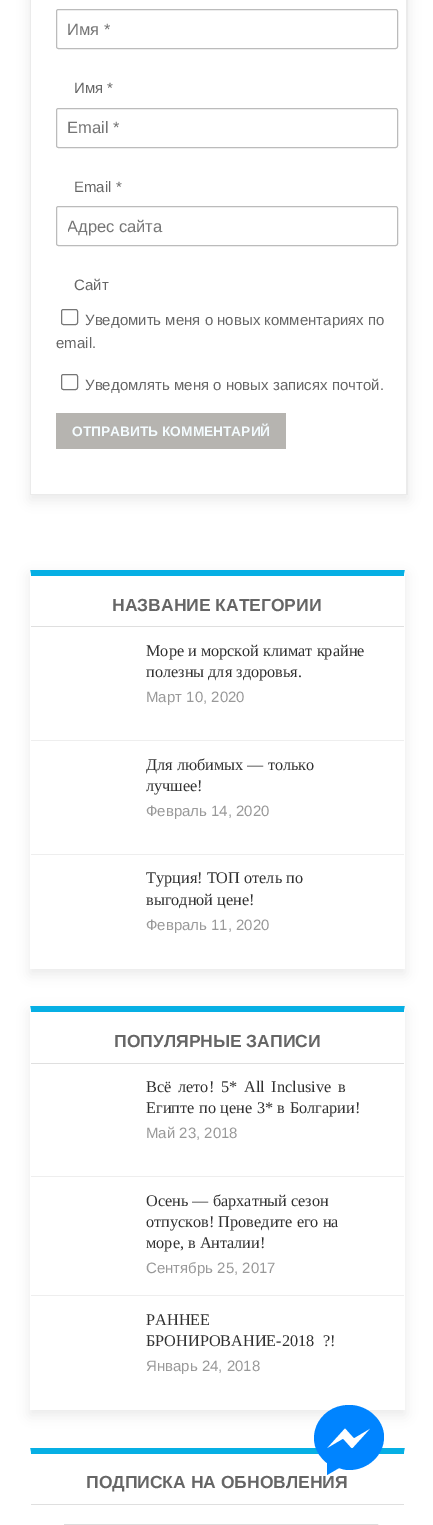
%!PS-Adobe-3.0
%%BoundingBox: 0 0 433 1525
%%LanguageLevel: 3
%%Pages: 1
%%EndComments
%%BeginProlog
/m { moveto } bind def
/l { lineto } bind def
/c { curveto } bind def
/h { closepath } bind def
/f { fill } bind def
/S { stroke } bind def
/q { gsave } bind def
/Q { grestore } bind def
/fn { [ exch dup neg 0 0 3 -1 roll 0 0 ] selectfont } def
/tx { moveto show } def
/bx { rectfill } def
/al { dup .setfillconstantalpha .setstrokeconstantalpha } def
/rr { 5 dict begin { /r /h /w /y /x } { exch def } forall
  x r add y moveto x w add y 2 copy h add r arct x w add y h add x 1 index r arct
  x y h add x y r arct x y 2 copy exch w add exch r arct closepath end } def
/sh { 12 dict begin { /a /b /q /h /w /y /x } { exch def } forall gsave /was 0 def
  9 -2 -9 { dup b mul 4 div /e exch def 1 sub .425 mul 2.718 exch exp 1 add a .99 .min exch div /now exch def
    1 1 now sub 1 was sub div sub al /was now def
    w h .min e 2 mul add 0 gt { x e sub y e sub w e 2 mul add h e 2 mul add
      q e add b .6 mul add w h .min 2 div e add .min 0 .max rr fill } if } for grestore end } def
%%EndProlog
%%BeginSetup
<< /PageSize [433 1525] /PageUsesTransparency true >> setpagedevice
%%EndSetup
%%Page: 1 1
0 .pushpdf14devicefilter
0 1525 translate 1 -1 scale
4 setmiterlimit
1 setgray
0 0 433 1525 bx
0 setgray
30 -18 378 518 0 6 0.08 sh
1 setgray
31 0 375 494 bx
0.922 setgray
408 -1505 m 408 495 l 406 494 l 406 -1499 l h f
30 494 378 1 bx
30 495 m 30 -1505 l 31 -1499 l 31 494 l h f
0.733 setgray
56.5 9.5 341 39 2 rr S
/LiberationSans-Regular 16.5 fn
0.459 setgray
(Имя *) 67 35 tx
/Arimo-Regular 15 fn
0.4 setgray
(Имя *) 74 93 tx
0.733 setgray
56.5 108.5 341 39 2 rr S
/LiberationSans-Regular 16.5 fn
0.459 setgray
(Email *) 67 133 tx
/Arimo-Regular 15 fn
0.4 setgray
(Email *) 74 192 tx
0.733 setgray
56.5 206.5 341 39 2 rr S
q
68 218 321 18 rectclip
/LiberationSans-Regular 16.5 fn
0.459 setgray
(Адрес сайта) 67 232 tx
Q
0.4 setgray
(Сайт) 74 290 tx
0.463 setgray
61.5 309.5 16 15 2 rr S
0.4 setgray
(Уведомить меня о новых комментариях по) 85 325 tx
(email.) 56 348 tx
0.463 setgray
61.5 374.5 16 15 2 rr S
0.4 setgray
(Уведомлять меня о новых записях почтой.) 85 390 tx
0.714 0.706 0.69 setrgbcolor
56 413 230 36 bx
/LiberationSans-Bold 13.75 fn
0.957 0.988 1 setrgbcolor
(ОТПРАВИТЬ КОММЕНТАРИЙ) 72 436 tx
q
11 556 m 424 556 l 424 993 l 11 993 l h 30 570 m 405 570 l 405 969 l 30 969 l h eoclip newpath
0 setgray
30 575 375 399 0 6 0.08 sh
Q
0.024 0.686 0.894 setrgbcolor
30 570 m 405 570 l 404 576 l 31 576 l h f
1 setgray
405 570 m 405 969 l 404 968 l 404 576 l h f
30 968 375 1 bx
30 969 m 30 570 l 31 576 l 31 968 l h f
0.875 setgray
31 626 373 1 bx
/LiberationSans-Bold 17.5 fn
0.4 setgray
(НАЗВАНИЕ КАТЕГОРИИ) 112 611 tx
0.933 setgray
31 740 373 1 bx
/LiberationSerif-Regular 16.25 fn
0.192 setgray
(Море и морской климат крайне) 146 656 tx
(полезны для здоровья.) 146 677 tx
/Arimo-Regular 15 fn
0.6 setgray
(Март 10, 2020) 146 702 tx
0.933 setgray
31 854 373 1 bx
/LiberationSerif-Regular 16.25 fn
0.192 setgray
(Для любимых — только) 146 770 tx
(лучшее!) 146 791 tx
/Arimo-Regular 15 fn
0.6 setgray
(Февраль 14, 2020) 146 816 tx
/LiberationSerif-Regular 16.25 fn
0.192 setgray
(Турция! ТОП отель по) 146 883 tx
(выгодной цене!) 146 905 tx
/Arimo-Regular 15 fn
0.6 setgray
(Февраль 11, 2020) 146 930 tx
q
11 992 m 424 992 l 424 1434 l 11 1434 l h 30 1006 m 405 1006 l 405 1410 l 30 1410 l h eoclip newpath
0 setgray
30 1011 375 404 0 6 0.08 sh
Q
0.024 0.686 0.894 setrgbcolor
30 1006 m 405 1006 l 404 1012 l 31 1012 l h f
1 setgray
405 1006 m 405 1410 l 404 1409 l 404 1012 l h f
30 1410 m 30 1006 l 31 1012 l 31 1409 l h f
0.875 setgray
31 1063 373 1 bx
/LiberationSans-Bold 17.5 fn
0.4 setgray
(ПОПУЛЯРНЫЕ ЗАПИСИ) 114 1047 tx
0.933 setgray
31 1176 373 1 bx
/LiberationSerif-Regular 16.25 fn
0.192 setgray
146 1092 m 2.75 0 32 (Всё лето! 5* All Inclusive в) widthshow
146 1113 m 0.5 0 32 (Египте по цене 3* в Болгарии!) widthshow
/Arimo-Regular 15 fn
0.6 setgray
(Май 23, 2018) 146 1138 tx
0.933 setgray
31 1295 373 1 bx
/LiberationSerif-Regular 16.25 fn
0.192 setgray
(Осень — бархатный сезон) 146 1206 tx
(отпусков! Проведите его на) 146 1227 tx
(море, в Анталии!) 146 1248 tx
/Arimo-Regular 15 fn
0.6 setgray
(Сентябрь 25, 2017) 146 1273 tx
/LiberationSerif-Regular 16.25 fn
0.192 setgray
(РАННЕЕ) 146 1325 tx
146 1346 m 5 0 32 (БРОНИРОВАНИЕ-2018 ?!) widthshow
/Arimo-Regular 15 fn
0.6 setgray
(Январь 24, 2018) 146 1371 tx
0.024 0.686 0.894 setrgbcolor
30 1448 m 405 1448 l 404 1454 l 31 1454 l h f
1 setgray
405 1448 m 405 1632 l 404 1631 l 404 1454 l h f
30 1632 m 30 1448 l 31 1454 l 31 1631 l h f
0.875 setgray
31 1504 373 1 bx
/LiberationSans-Bold 17.5 fn
0.4 setgray
(ПОДПИСКА НА ОБНОВЛЕНИЯ) 86 1488 tx
0.867 setgray
64.5 1524.5 313 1 rectstroke
0 0.518 1 setrgbcolor
349 1405 m 317 1405 301 1443 327 1463 c 327 1475 l 339 1468 l 342 1469 345 1470 349 1470 c 368 1470 384 1455 384 1437 c 384 1420 368 1405 349 1405 c h 352 1449 m 343 1439 l 326 1449 l 345 1428 l 354 1438 l 371 1428 l h f
.poppdf14devicefilter showpage
%%EOF
